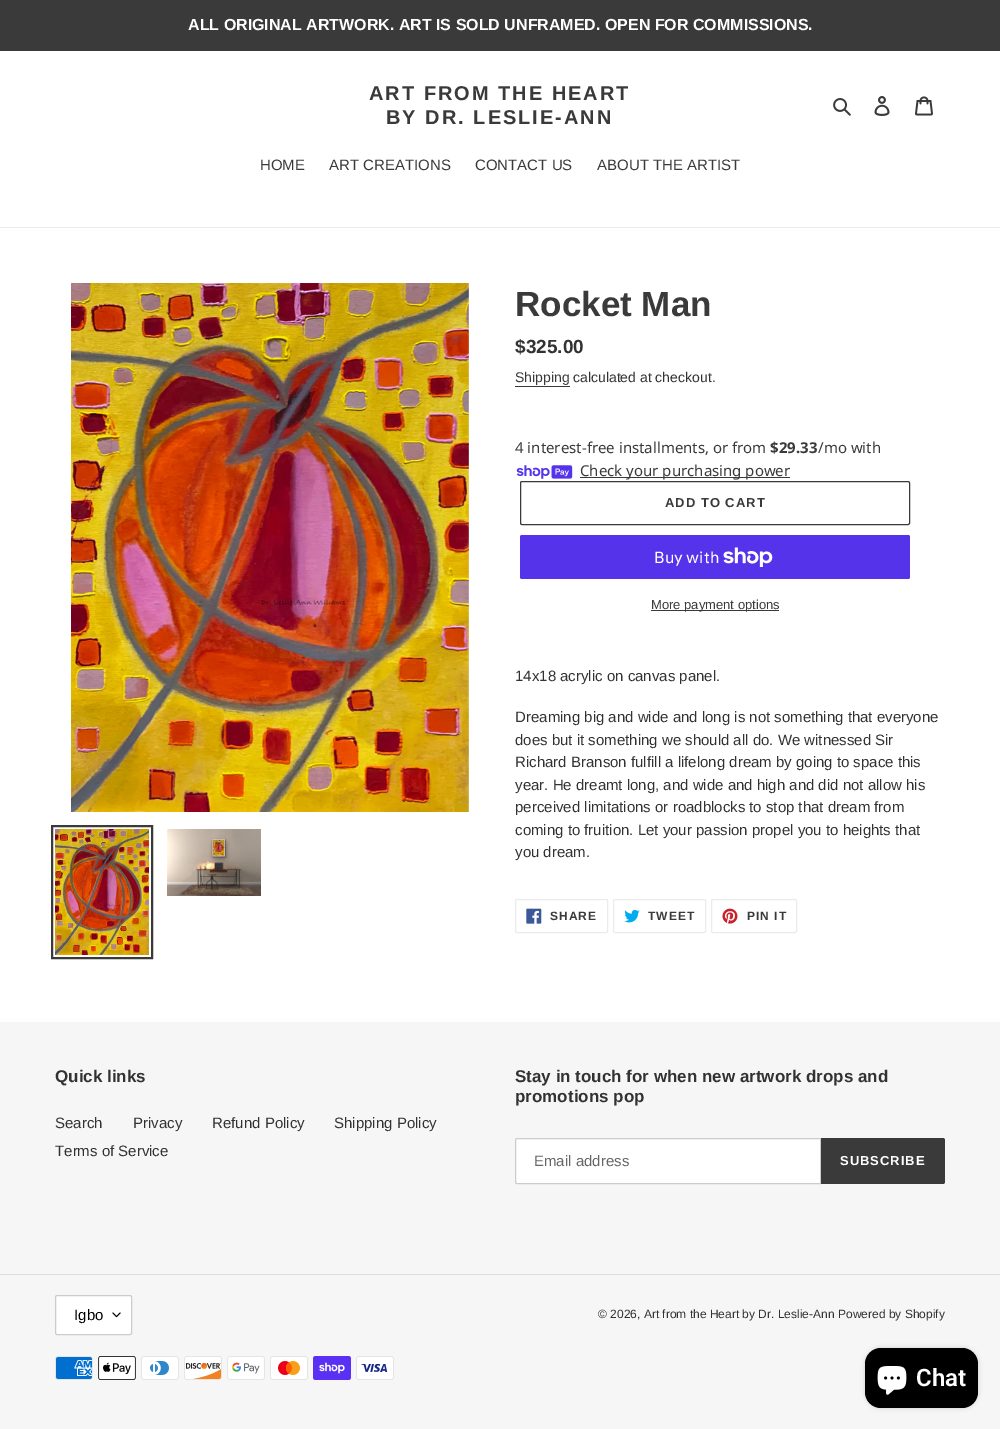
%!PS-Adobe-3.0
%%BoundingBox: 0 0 1000 1429
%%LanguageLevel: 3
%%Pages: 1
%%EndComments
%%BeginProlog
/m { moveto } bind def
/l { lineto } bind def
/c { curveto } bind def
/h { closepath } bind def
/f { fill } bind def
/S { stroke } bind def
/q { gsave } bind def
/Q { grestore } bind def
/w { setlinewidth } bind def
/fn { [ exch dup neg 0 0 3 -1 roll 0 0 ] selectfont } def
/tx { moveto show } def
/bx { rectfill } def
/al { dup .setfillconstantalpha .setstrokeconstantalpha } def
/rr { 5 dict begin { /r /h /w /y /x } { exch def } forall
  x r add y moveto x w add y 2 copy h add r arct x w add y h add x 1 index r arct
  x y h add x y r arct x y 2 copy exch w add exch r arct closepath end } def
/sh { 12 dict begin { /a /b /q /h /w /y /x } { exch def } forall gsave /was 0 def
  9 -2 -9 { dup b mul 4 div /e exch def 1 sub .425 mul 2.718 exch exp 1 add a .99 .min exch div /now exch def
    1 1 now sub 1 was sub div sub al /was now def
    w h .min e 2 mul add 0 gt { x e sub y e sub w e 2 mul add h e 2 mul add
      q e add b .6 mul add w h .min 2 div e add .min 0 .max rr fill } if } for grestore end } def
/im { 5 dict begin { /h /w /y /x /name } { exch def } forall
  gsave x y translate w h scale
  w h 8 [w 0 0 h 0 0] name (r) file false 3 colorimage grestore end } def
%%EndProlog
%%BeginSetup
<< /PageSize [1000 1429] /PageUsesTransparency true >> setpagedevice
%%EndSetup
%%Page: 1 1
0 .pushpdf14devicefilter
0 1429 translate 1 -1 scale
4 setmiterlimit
1 setgray
0 0 1000 1429 bx
0.227 setgray
0 0 1000 51 bx
/LiberationSans-Bold 16 fn
1 setgray
(ALL ORIGINAL ARTWORK. ART IS SOLD UNFRAMED. OPEN FOR COMMISSIONS.) 188 30 tx
/LiberationSans-Bold 20 fn
0.227 setgray
369 100 m 2 0 (ART FROM THE HEART) ashow
386 124 m 2 0 (BY DR. LESLIE-ANN) ashow
(image0.raw) 833 98 18 18 im
(image1.raw) 874 96 16 20 im
(image2.raw) 915 96 18 20 im
0.922 setgray
0 227 1000 1 bx
/LiberationSans-Regular 15 fn
0.227 setgray
(HOME) 260 170 tx
(ART CREATIONS) 329 170 tx
(CONTACT US) 475 170 tx
(ABOUT THE ARTIST) 597 170 tx
(image3.raw) 71 283 398 529 im
2 w
52 826 100 132 rectstroke
(image4.raw) 55 829 94 126 im
(image5.raw) 167 829 94 67 im
/LiberationSans-Bold 35 fn
(Rocket Man) 515 316 tx
/LiberationSans-Bold 19 fn
0.2 0.196 0.196 setrgbcolor
($325.00) 515 353 tx
/LiberationSans-Regular 14 fn
0.227 setgray
(Shipping) 515 382 tx
515 386 55 1 bx
0.2 0.196 0.196 setrgbcolor
(calculated at checkout.) 573 382 tx
/NotoSans-Regular 15 fn
0.227 setgray
(4 interest-free installments, or from) 515 453 tx
/NotoSans-Bold 15 fn
($29.33) 770 453 tx
/NotoSans-Regular 15 fn
(/mo with) 818 453 tx
(image6.raw) 516 465 57 14 im
580 477 210 1 bx
(Check your purchasing power) 580 476 tx
1 w
520.5 481.5 389 43 1.5 rr S
/LiberationSans-Bold 13 fn
665 507 m 1 0 (ADD TO CART) ashow
0.329 0.2 0.922 setrgbcolor
520 535 390 44 2 rr f
/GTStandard-Regular 16 fn
1 setgray
(Buy with) 654 563 tx
(image7.raw) 723 547 50 20 im
0.227 setgray
651 610 128 1 bx
/LiberationSans-Regular 13 fn
(More payment options) 651 609 tx
/LiberationSans-Regular 15 fn
0.2 0.196 0.196 setrgbcolor
(14x18 acrylic on canvas panel.) 515 681 tx
(Dreaming big and wide and long is not something that everyone) 515 722 tx
(does but it something we should all do. We witnessed Sir) 515 745 tx
(Richard Branson fulfill a lifelong dream by going to space this) 515 767 tx
(year. He dreamt long, and wide and high and did not allow his) 515 790 tx
(perceived limitations or roadblocks to stop that dream from) 515 812 tx
(coming to fruition. Let your passion propel you to heights that) 515 835 tx
(you dream.) 515 857 tx
0.922 setgray
515.5 899.5 92 33 1.5 rr S
(image8.raw) 526 908 16 16 im
/LiberationSans-Bold 12 fn
0.227 setgray
550 920 m 1 0 (SHARE) ashow
0.922 setgray
613.5 899.5 92 33 1.5 rr S
(image9.raw) 624 909 16 14 im
0.227 setgray
648 920 m 1 0 (TWEET) ashow
0.922 setgray
711.5 899.5 85 33 1.5 rr S
(image10.raw) 722 908 16 16 im
0.227 setgray
747 920 m 1 0 (PIN IT) ashow
0.965 setgray
0 1022 1000 407 bx
/LiberationSans-Bold 17 fn
0.2 0.196 0.196 setrgbcolor
(Quick links) 55 1082 tx
/LiberationSans-Regular 15 fn
(Search) 55 1128 tx
(Privacy) 133 1128 tx
(Refund Policy) 212 1128 tx
(Shipping Policy) 334 1128 tx
(Terms of Service) 55 1156 tx
/LiberationSans-Bold 17 fn
(Stay in touch for when new artwork drops and) 515 1082 tx
(promotions pop) 515 1102 tx
1 setgray
517 1138.5 m 820.5 1138.5 l 820.5 1183.5 l 517 1183.5 l 516 1183.5 515.5 1183 515.5 1182 c 515.5 1140 l 515.5 1139 516 1138.5 517 1138.5 c h q f Q
0.8 setgray
S
/LiberationSans-Regular 15 fn
0.4 setgray
(Email address) 534 1166 tx
0.227 setgray
821 1138 m 943 1138 l 944 1138 945 1139 945 1140 c 945 1182 l 945 1183 944 1184 943 1184 c 821 1184 l h f
/LiberationSans-Bold 13 fn
1 setgray
840 1165 m 1 0 (SUBSCRIBE) ashow
0.867 setgray
0 1274 1000 1 bx
1 setgray
55 1295 77 40 2 rr f
(image11.raw) 112 1312 9 6 im
0.8 setgray
55.5 1295.5 76 39 1.5 rr S
/LiberationSans-Regular 15 fn
0 setgray
(Igbo) 74 1320 tx
/LiberationSans-Regular 12 fn
0.2 0.196 0.196 setrgbcolor
(© 2026, Art from the Heart by Dr. Leslie-Ann) 598 1318 tx
(Powered by Shopify) 838 1318 tx
(image12.raw) 55 1356 38 24 im
(image13.raw) 98 1356 38 24 im
(image14.raw) 141 1356 38 24 im
(image15.raw) 184 1356 38 24 im
(image16.raw) 227 1356 38 24 im
(image17.raw) 270 1356 38 24 im
(image18.raw) 313 1356 38 24 im
(image19.raw) 356 1356 38 24 im
0 setgray
865 1348 113 60 16 2.5 0.15 sh
865 1348 113 60 16 rr f
(image20.raw) 877 1366 30 29 im
/Roboto-SemiBold 24 fn
1 setgray
(Chat) 916 1386 tx
.poppdf14devicefilter showpage
%%EOF
